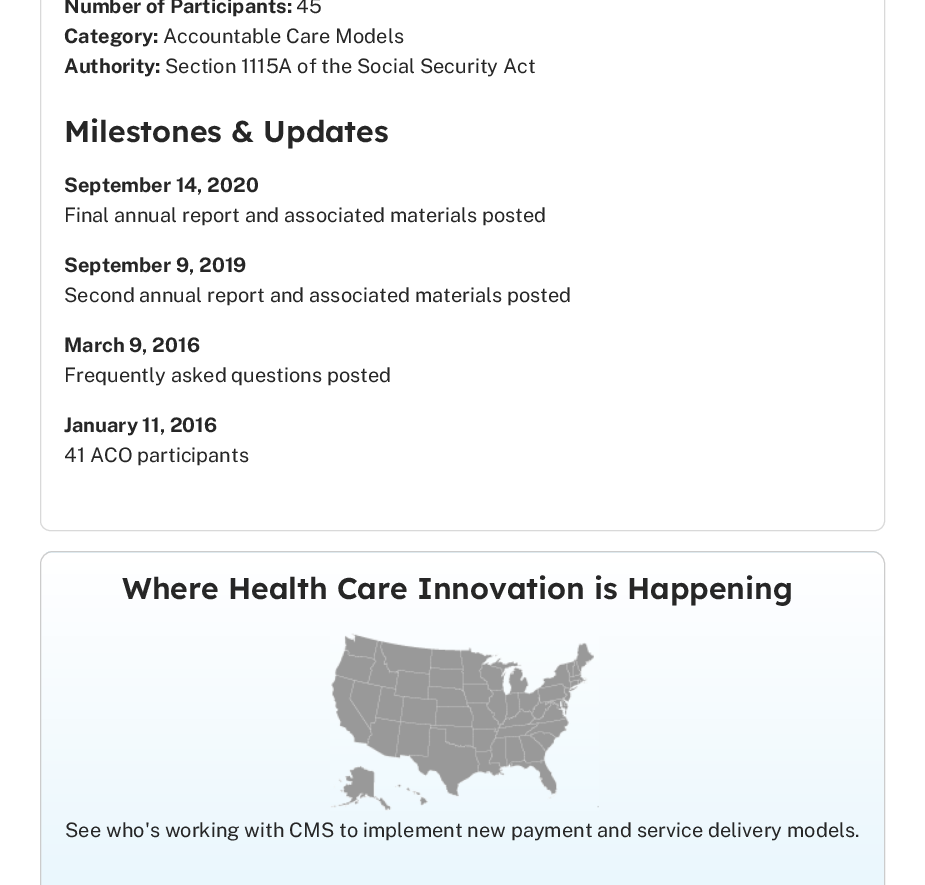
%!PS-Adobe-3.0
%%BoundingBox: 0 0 925 885
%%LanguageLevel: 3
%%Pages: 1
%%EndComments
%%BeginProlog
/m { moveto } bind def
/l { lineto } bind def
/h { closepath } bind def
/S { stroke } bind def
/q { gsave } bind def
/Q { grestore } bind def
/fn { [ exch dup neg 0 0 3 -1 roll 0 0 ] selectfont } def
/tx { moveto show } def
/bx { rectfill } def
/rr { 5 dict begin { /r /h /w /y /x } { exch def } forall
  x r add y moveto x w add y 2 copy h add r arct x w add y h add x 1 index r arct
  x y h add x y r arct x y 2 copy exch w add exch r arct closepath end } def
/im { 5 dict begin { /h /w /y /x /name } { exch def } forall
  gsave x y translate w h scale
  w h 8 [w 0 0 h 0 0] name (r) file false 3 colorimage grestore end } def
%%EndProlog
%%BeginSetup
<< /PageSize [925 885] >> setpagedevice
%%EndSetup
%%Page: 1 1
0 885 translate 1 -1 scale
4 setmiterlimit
1 setgray
0 0 925 885 bx
0.851 setgray
40.5 -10.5 844 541 9.5 rr S
/PublicSans-Bold 20 fn
0.149 setgray
(Number of Participants:) 64 13 tx
/PublicSans-Regular 20 fn
(45) 296 13 tx
/PublicSans-Bold 20 fn
(Category:) 64 43 tx
/PublicSans-Regular 20 fn
(Accountable Care Models) 163 43 tx
/PublicSans-Bold 20 fn
(Authority:) 64 73 tx
/PublicSans-Regular 20 fn
(Section 1115A of the Social Security Act) 165 73 tx
/Lexend-SemiBold 30 fn
(Milestones & Updates) 64 142 tx
/PublicSans-Bold 20 fn
(September 14, 2020) 64 192 tx
/PublicSans-Regular 20 fn
(Final annual report and associated materials posted) 64 222 tx
/PublicSans-Bold 20 fn
(September 9, 2019) 64 272 tx
/PublicSans-Regular 20 fn
(Second annual report and associated materials posted) 64 302 tx
/PublicSans-Bold 20 fn
(March 9, 2016) 64 352 tx
/PublicSans-Regular 20 fn
(Frequently asked questions posted) 64 382 tx
/PublicSans-Bold 20 fn
(January 11, 2016) 64 432 tx
/PublicSans-Regular 20 fn
(41 ACO participants) 64 462 tx
q
40 551 845 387 13 rr clip newpath
q 40 551 m 885 551 l 885 553 l 40 553 l h clip newpath
<< /ShadingType 2 /ColorSpace /DeviceRGB /Coords [463 169 463 553] /Extend [true true] /Function << /FunctionType 3 /Domain [0 1] /Functions [<< /FunctionType 2 /Domain [0 1] /C0 [1 1 1] /C1 [1 1 1] /N 1 >> << /FunctionType 2 /Domain [0 1] /C0 [1 1 1] /C1 [0.906 0.965 0.992] /N 1 >>] /Bounds [0.01] /Encode [0 1 0 1] >> >> shfill Q
q 40 553 m 885 553 l 885 885 l 40 885 l h clip newpath
<< /ShadingType 2 /ColorSpace /DeviceRGB /Coords [463 553 463 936] /Extend [true true] /Function << /FunctionType 3 /Domain [0 1] /Functions [<< /FunctionType 2 /Domain [0 1] /C0 [1 1 1] /C1 [1 1 1] /N 1 >> << /FunctionType 2 /Domain [0 1] /C0 [1 1 1] /C1 [0.906 0.965 0.992] /N 1 >>] /Bounds [0.01] /Encode [0 1 0 1] >> >> shfill Q
Q
0.8 setgray
40.5 551.5 844 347 12.5 rr S
/Lexend-SemiBold 30 fn
0.149 setgray
(Where Health Care Innovation is Happening) 122 599 tx
(image0.raw) 330 633 269 178 im
/PublicSans-Regular 20 fn
(See who's working with CMS to implement new payment and service delivery models.) 65 837 tx
showpage
%%EOF
